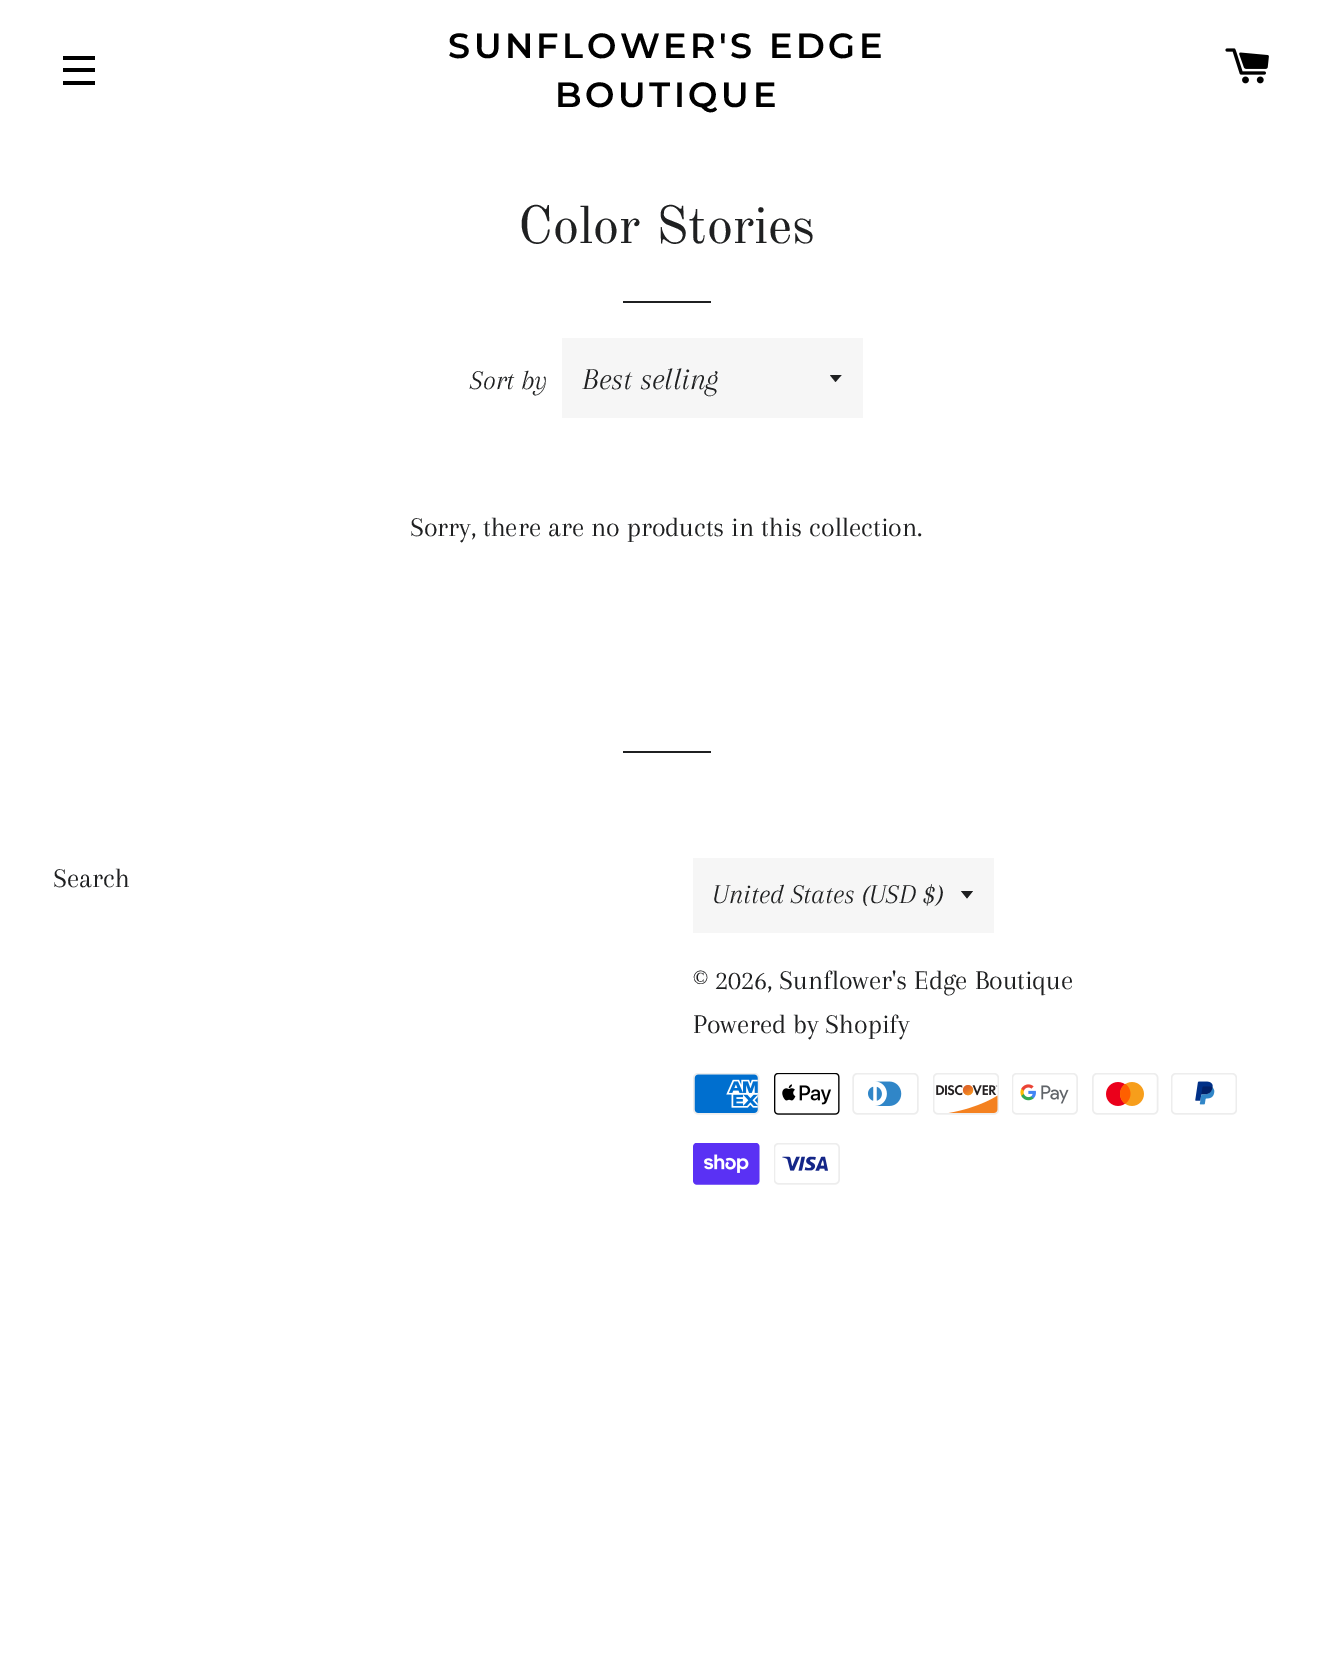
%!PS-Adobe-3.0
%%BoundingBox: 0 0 1332 1657
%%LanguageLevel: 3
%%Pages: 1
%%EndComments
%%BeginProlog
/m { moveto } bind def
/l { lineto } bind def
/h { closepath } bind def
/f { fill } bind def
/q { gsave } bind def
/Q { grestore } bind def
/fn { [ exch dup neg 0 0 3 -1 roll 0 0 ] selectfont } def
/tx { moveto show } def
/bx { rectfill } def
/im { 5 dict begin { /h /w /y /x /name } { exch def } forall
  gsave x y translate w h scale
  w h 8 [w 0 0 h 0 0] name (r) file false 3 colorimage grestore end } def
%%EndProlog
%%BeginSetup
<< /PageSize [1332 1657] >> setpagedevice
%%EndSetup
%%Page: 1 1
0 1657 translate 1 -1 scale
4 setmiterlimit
1 setgray
0 0 1332 1657 bx
0 setgray
63 56 32 4 bx
63 68 32 4 bx
63 81 32 4 bx
/Montserrat-SemiBold 35 fn
448 58 m 3.5 0 (SUNFLOWER'S EDGE) ashow
555 107 m 3.5 0 (BOUTIQUE) ashow
(image0.raw) 1225 48 44 36 im
/OldStandardTT-Regular 52.5 fn
0.122 0.125 0.129 setrgbcolor
(Color Stories) 518 243 tx
623 301 88 2 bx
/Arapey-Italic 28 fn
(Sort by) 470 389 tx
0.965 setgray
562 338 301 80 bx
q
830 375 14 8 rectclip
0.122 0.125 0.129 setrgbcolor
829.5 374.5 m 835.5 382 l 842 374.5 l h f
Q
/Arapey-Italic 31.5 fn
0.122 0.125 0.129 setrgbcolor
(Best selling) 582 389 tx
/Arapey-Regular 28 fn
(Sorry, there are no products in this collection.) 410 536 tx
623 751 88 2 bx
(Search) 53 887 tx
0.965 setgray
693 858 301 75 bx
0.122 0.125 0.129 setrgbcolor
961 891 m 967 898.5 l 973 891 l h f
/Arapey-Italic 28 fn
(United States \(USD $\)) 712 903 tx
/Arapey-Regular 28 fn
(© 2026, Sunflower's Edge Boutique) 693 989 tx
(Powered by Shopify) 693 1033 tx
(image1.raw) 693 1073 67 42 im
(image2.raw) 774 1073 66 42 im
(image3.raw) 852 1073 67 42 im
(image4.raw) 933 1073 66 42 im
(image5.raw) 1012 1073 66 42 im
(image6.raw) 1092 1073 67 42 im
(image7.raw) 1171 1073 66 42 im
(image8.raw) 693 1143 67 42 im
(image9.raw) 774 1143 66 42 im
showpage
%%EOF
